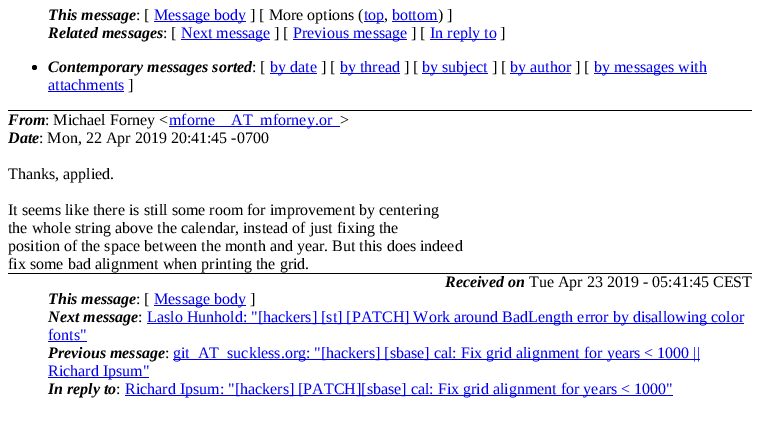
%!PS-Adobe-3.0
%%BoundingBox: 0 0 760 424
%%LanguageLevel: 3
%%Pages: 1
%%EndComments
%%BeginProlog
/f { fill } bind def
/fn { [ exch dup neg 0 0 3 -1 roll 0 0 ] selectfont } def
/tx { moveto show } def
/bx { rectfill } def
/ci { newpath 0 360 arc closepath } def
%%EndProlog
%%BeginSetup
<< /PageSize [760 424] >> setpagedevice
%%EndSetup
%%Page: 1 1
0 424 translate 1 -1 scale
4 setmiterlimit
1 setgray
0 0 760 424 bx
0 setgray
8 110 744 1 bx
/LiberationSerif-BoldItalic 16 fn
(This message) 48 20 tx
/LiberationSerif-Regular 16 fn
(: [) 136 20 tx
0 0 0.933 setrgbcolor
154 21 92 1 bx
(Message body) 154 20 tx
0 setgray
(] [ More options \() 250 20 tx
0 0 0.933 setrgbcolor
364 21 20 1 bx
(top) 364 20 tx
0 setgray
(,) 384 20 tx
0 0 0.933 setrgbcolor
(bottom) 392 20 tx
392 21 46 1 bx
0 setgray
(\) ]) 438 20 tx
/LiberationSerif-BoldItalic 16 fn
(Related messages) 48 38 tx
/LiberationSerif-Regular 16 fn
(: [) 163 38 tx
0 0 0.933 setrgbcolor
181 39 89 1 bx
(Next message) 181 38 tx
0 setgray
(] [) 274 38 tx
0 0 0.933 setrgbcolor
293 39 114 1 bx
(Previous message) 293 38 tx
0 setgray
(] [) 411 38 tx
0 0 0.933 setrgbcolor
430 39 66 1 bx
(In reply to) 430 38 tx
0 setgray
(]) 500 38 tx
34.5 67.5 2.5 ci f
/LiberationSerif-BoldItalic 16 fn
(Contemporary messages sorted) 48 72 tx
/LiberationSerif-Regular 16 fn
(: [) 252 72 tx
0 0 0.933 setrgbcolor
270 73 47 1 bx
(by date) 270 72 tx
0 setgray
(] [) 321 72 tx
0 0 0.933 setrgbcolor
340 73 60 1 bx
(by thread) 340 72 tx
0 setgray
(] [) 404 72 tx
0 0 0.933 setrgbcolor
422 73 66 1 bx
(by subject) 422 72 tx
0 setgray
(] [) 492 72 tx
0 0 0.933 setrgbcolor
510 73 61 1 bx
(by author) 510 72 tx
0 setgray
(] [) 575 72 tx
0 0 0.933 setrgbcolor
594 73 113 1 bx
(by messages with) 594 72 tx
(attachments) 48 90 tx
48 91 76 1 bx
0 setgray
(]) 128 90 tx
/LiberationSerif-BoldItalic 16 fn
(From) 8 125 tx
/LiberationSerif-Regular 16 fn
(: Michael Forney <) 45 125 tx
0 0 0.933 setrgbcolor
(mforne) 169 125 tx
169 126 171 1 bx
(AT_mforney.or) 231 125 tx
0 setgray
(>) 340 125 tx
/LiberationSerif-BoldItalic 16 fn
(Date) 8 143 tx
/LiberationSerif-Regular 16 fn
(: Mon, 22 Apr 2019 20:41:45 -0700) 39 143 tx
(Thanks, applied.) 8 179 tx
(It seems like there is still some room for improvement by centering) 8 215 tx
(the whole string above the calendar, instead of just fixing the) 8 233 tx
(position of the space between the month and year. But this does indeed) 8 251 tx
(fix some bad alignment when printing the grid.) 8 269 tx
/LiberationSerif-BoldItalic 16 fn
(Received on) 445 287 tx
/LiberationSerif-Regular 16 fn
(Tue Apr 23 2019 - 05:41:45 CEST) 529 287 tx
8 273 744 1 bx
/LiberationSerif-BoldItalic 16 fn
(This message) 48 304 tx
/LiberationSerif-Regular 16 fn
(: [) 136 304 tx
0 0 0.933 setrgbcolor
154 305 92 1 bx
(Message body) 154 304 tx
0 setgray
(]) 250 304 tx
/LiberationSerif-BoldItalic 16 fn
(Next message) 48 322 tx
/LiberationSerif-Regular 16 fn
(:) 138 322 tx
0 0 0.933 setrgbcolor
147 323 597 1 bx
(Laslo Hunhold: "[hackers] [st] [PATCH] Work around BadLength error by disallowing color) 147 322 tx
(fonts") 48 340 tx
48 341 39 1 bx
/LiberationSerif-BoldItalic 16 fn
0 setgray
(Previous message) 48 358 tx
/LiberationSerif-Regular 16 fn
(:) 165 358 tx
0 0 0.933 setrgbcolor
173 359 527 1 bx
(git_AT_suckless.org: "[hackers] [sbase] cal: Fix grid alignment for years < 1000 ||) 173 358 tx
48 377 101 1 bx
(Richard Ipsum") 48 376 tx
/LiberationSerif-BoldItalic 16 fn
0 setgray
(In reply to) 48 394 tx
/LiberationSerif-Regular 16 fn
(:) 116 394 tx
0 0 0.933 setrgbcolor
125 395 548 1 bx
(Richard Ipsum: "[hackers] [PATCH][sbase] cal: Fix grid alignment for years < 1000") 125 394 tx
showpage
%%EOF
